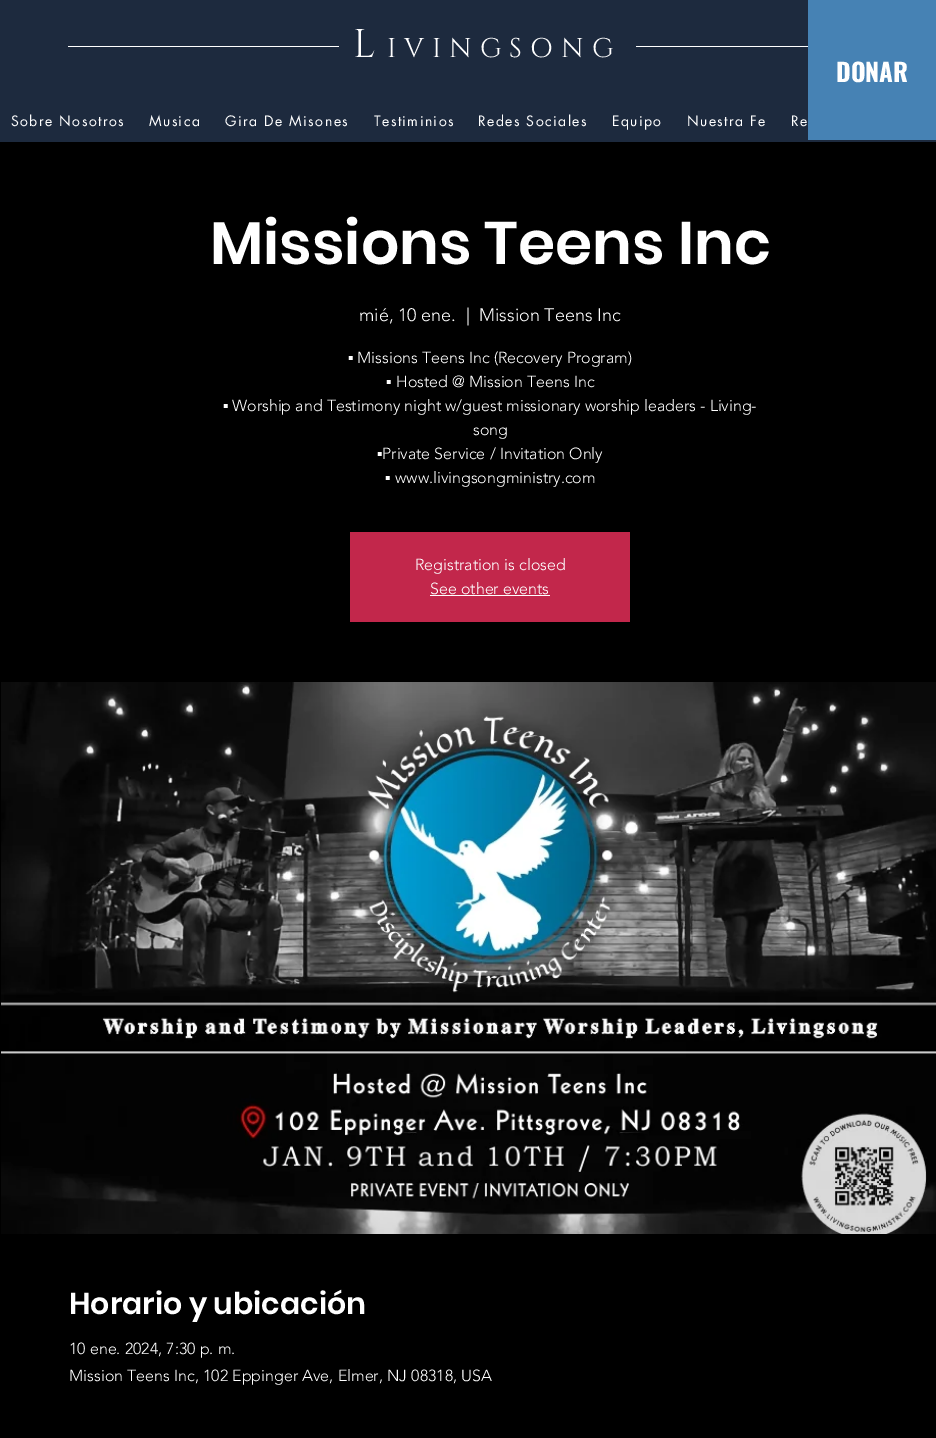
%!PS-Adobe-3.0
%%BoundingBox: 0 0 936 1438
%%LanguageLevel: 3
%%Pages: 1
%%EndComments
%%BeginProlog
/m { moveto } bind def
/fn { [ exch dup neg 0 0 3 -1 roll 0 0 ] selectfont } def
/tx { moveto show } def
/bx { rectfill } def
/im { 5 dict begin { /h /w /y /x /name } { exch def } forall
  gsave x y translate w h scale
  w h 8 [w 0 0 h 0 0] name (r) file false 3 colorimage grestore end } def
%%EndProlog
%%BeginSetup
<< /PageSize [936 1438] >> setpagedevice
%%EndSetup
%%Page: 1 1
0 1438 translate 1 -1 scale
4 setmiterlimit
0 setgray
0 0 936 1438 bx
0.114 0.165 0.243 setrgbcolor
0 0 936 142 bx
1 setgray
68 46 271 1 bx
/Cinzel-Regular 40 fn
353 57 m 12 0 (L) ashow
/Cinzel-Regular 27 fn
387 57 m 8 0 (IVINGSONG) ashow
636 46 172 1 bx
/futura-Regular 14 fn
11 126 m 1.4 0 (Sobre Nosotros) ashow
149 126 m 1.4 0 (Musica) ashow
225 126 m 1.4 0 (Gira De Misones) ashow
374 126 m 1.4 0 (Testiminios) ashow
478 126 m 1.4 0 (Redes Sociales) ashow
612 126 m 1.4 0 (Equipo) ashow
687 126 m 1.4 0 (Nuestra Fe) ashow
791 126 m 1.4 0 (Re) ashow
0.275 0.51 0.706 setrgbcolor
808 0 128 140 bx
/Oswald-Bold 25 fn
1 setgray
(DONAR) 836 82 tx
/Poppins-SemiBold 60 fn
(Missions Teens Inc) 210 264 tx
/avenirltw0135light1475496-Light 18 fn
(mié, 10 ene.) 359 321 tx
(|) 466 321 tx
(Mission Teens Inc) 479 321 tx
/LiberationSans-Regular 16 fn
(▪) 348 363 tx
/avenirltw0135light1475496-Light 16 fn
(Missions Teens Inc \(Recovery Program\)) 357 363 tx
/LiberationSans-Regular 16 fn
(▪) 386 387 tx
/avenirltw0135light1475496-Light 16 fn
(Hosted @ Mission Teens Inc) 396 387 tx
/LiberationSans-Regular 16 fn
(▪) 223 411 tx
/avenirltw0135light1475496-Light 16 fn
(Worship and Testimony night w/guest missionary worship leaders - Living-) 232 411 tx
(song) 473 435 tx
/LiberationSans-Regular 16 fn
(▪) 377 459 tx
/avenirltw0135light1475496-Light 16 fn
(Private Service / Invitation Only) 382 459 tx
/LiberationSans-Regular 16 fn
(▪) 385 483 tx
/avenirltw0135light1475496-Light 16 fn
(www.livingsongministry.com) 395 483 tx
0.761 0.153 0.294 setrgbcolor
350 532 280 90 bx
1 setgray
(Registration is closed) 415 570 tx
(See other events) 430 594 tx
430 595 120 1 bx
(image0.raw) 1 682 935 552 im
/Poppins-SemiBold 30 fn
(Horario y ubicación) 69 1314 tx
/avenirltw0135light1475496-Light 16 fn
(10 ene. 2024, 7:30 p. m.) 69 1354 tx
(Mission Teens Inc, 102 Eppinger Ave, Elmer, NJ 08318, USA) 69 1381 tx
showpage
%%EOF
